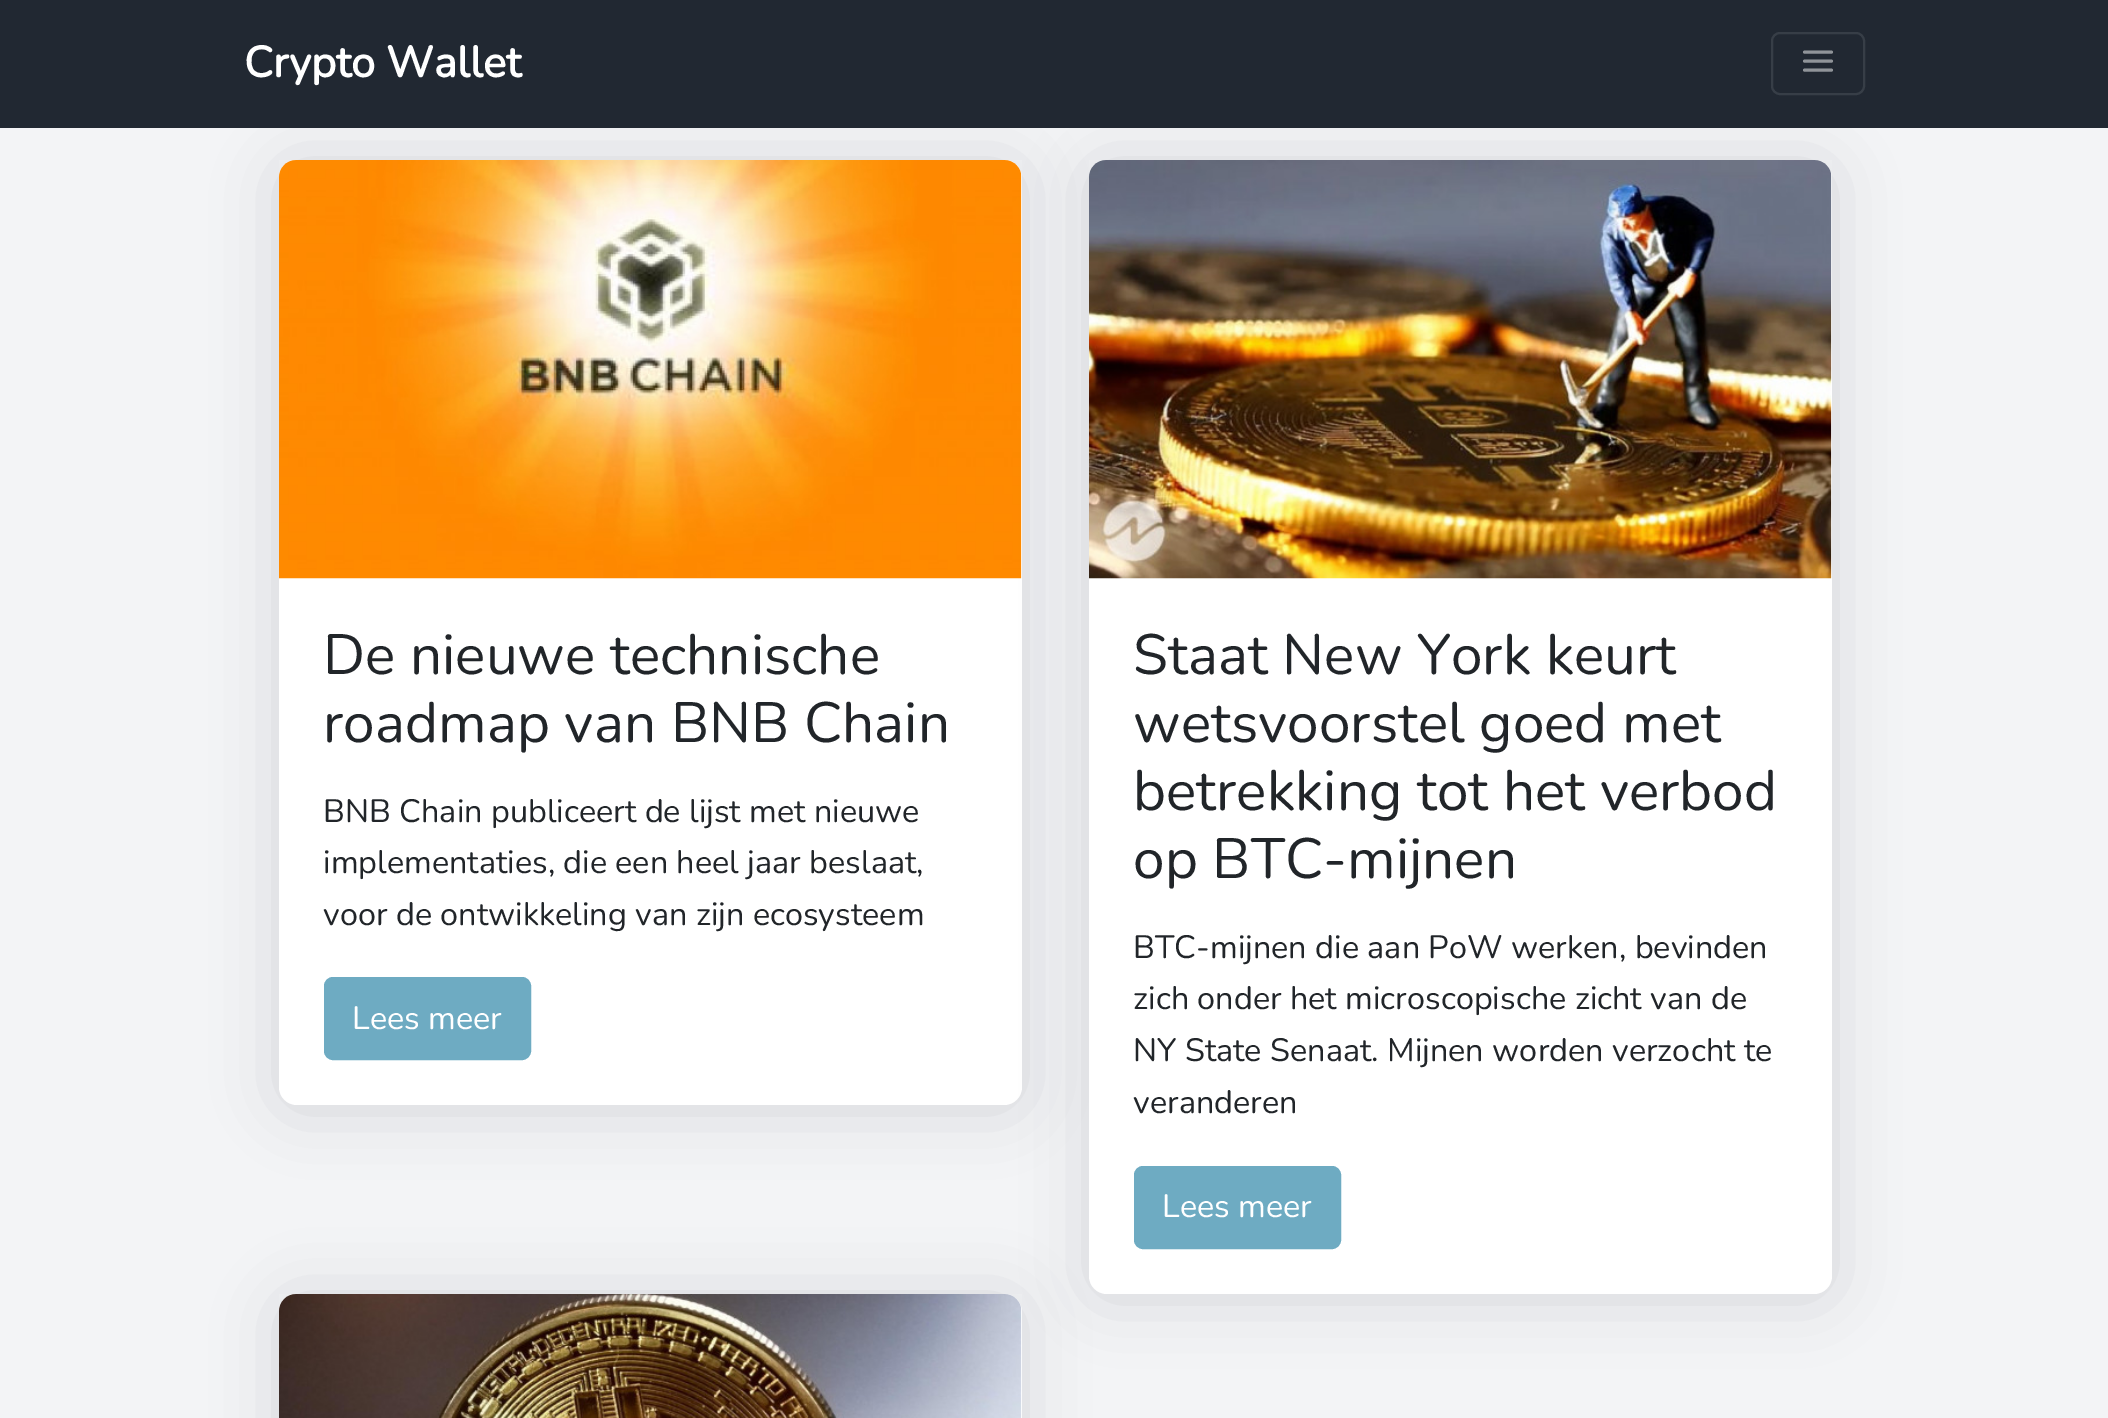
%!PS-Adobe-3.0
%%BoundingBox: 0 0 2108 1418
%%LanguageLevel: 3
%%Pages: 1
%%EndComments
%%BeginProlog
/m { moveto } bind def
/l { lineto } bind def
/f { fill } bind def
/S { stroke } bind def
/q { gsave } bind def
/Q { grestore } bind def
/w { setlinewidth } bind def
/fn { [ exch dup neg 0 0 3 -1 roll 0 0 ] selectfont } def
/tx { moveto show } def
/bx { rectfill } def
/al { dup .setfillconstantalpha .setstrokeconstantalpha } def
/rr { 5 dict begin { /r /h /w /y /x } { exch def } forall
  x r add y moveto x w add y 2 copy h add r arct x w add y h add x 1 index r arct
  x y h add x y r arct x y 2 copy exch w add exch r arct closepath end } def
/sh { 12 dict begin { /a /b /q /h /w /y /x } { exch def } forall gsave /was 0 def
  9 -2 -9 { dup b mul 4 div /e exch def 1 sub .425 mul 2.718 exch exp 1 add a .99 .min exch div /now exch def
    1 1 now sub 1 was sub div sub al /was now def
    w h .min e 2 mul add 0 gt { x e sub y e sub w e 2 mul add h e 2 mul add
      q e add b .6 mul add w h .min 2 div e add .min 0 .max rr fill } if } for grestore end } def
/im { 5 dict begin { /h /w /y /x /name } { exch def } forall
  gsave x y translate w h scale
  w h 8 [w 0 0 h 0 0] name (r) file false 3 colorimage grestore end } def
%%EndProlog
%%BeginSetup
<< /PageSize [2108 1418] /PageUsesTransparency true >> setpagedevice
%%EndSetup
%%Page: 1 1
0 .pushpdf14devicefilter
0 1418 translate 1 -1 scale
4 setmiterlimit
0.953 0.957 0.965 setrgbcolor
0 0 2108 1418 bx
0.129 0.157 0.196 setrgbcolor
279 164 743 945 18 31.5 0.15 sh
1 setgray
279 160 743 945 18 rr f
(image0.raw) 279 160 743 419 im
0.129 0.157 0.196 setrgbcolor
1089 164 743 1134 18 31.5 0.15 sh
0 0 2108 128 bx
/Nunito-Bold 43.25 fn
1 setgray
(Crypto Wallet) 244 77 tx
0.216 0.243 0.278 setrgbcolor
2 w
1772 33 92 61 8 rr S
0.565 0.58 0.6 setrgbcolor
3 w
1 setlinecap
1 setlinejoin
1804.5 61 m 1831.5 61 l 1804.5 52 m 1831.5 52 l 1804.5 70 m 1831.5 70 l S
/Nunito-ExtraLight 56.75 fn
0.129 0.145 0.161 setrgbcolor
(De nieuwe technische) 323 674 tx
(roadmap van BNB Chain) 323 742 tx
/Nunito-ExtraLight 32.4 fn
(BNB Chain publiceert de lijst met nieuwe) 323 822 tx
(implementaties, die een heel jaar beslaat,) 323 873 tx
(voor de ontwikkeling van zijn ecosysteem) 323 925 tx
0.431 0.671 0.761 setrgbcolor
325 978 205 81 8 rr q f Q
2 w
0 setlinecap
0 setlinejoin
S
1 setgray
(Lees meer) 352 1029 tx
1089 160 743 1134 18 rr f
(image1.raw) 1089 160 743 419 im
/Nunito-ExtraLight 56.75 fn
0.129 0.145 0.161 setrgbcolor
(Staat New York keurt) 1133 674 tx
(wetsvoorstel goed met) 1133 742 tx
(betrekking tot het verbod) 1133 810 tx
(op BTC-mijnen) 1133 878 tx
/Nunito-ExtraLight 32.4 fn
(BTC-mijnen die aan PoW werken, bevinden) 1133 958 tx
(zich onder het microscopische zicht van de) 1133 1009 tx
(NY State Senaat. Mijnen worden verzocht te) 1133 1061 tx
(veranderen) 1133 1113 tx
0.431 0.671 0.761 setrgbcolor
1135 1167 205 81 8 rr q f Q
S
1 setgray
(Lees meer) 1162 1217 tx
0.129 0.157 0.196 setrgbcolor
279 1298 743 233 18 31.5 0.15 sh
1 setgray
279 1294 743 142 18 rr f
(image2.raw) 279 1294 743 124 im
.poppdf14devicefilter showpage
%%EOF
